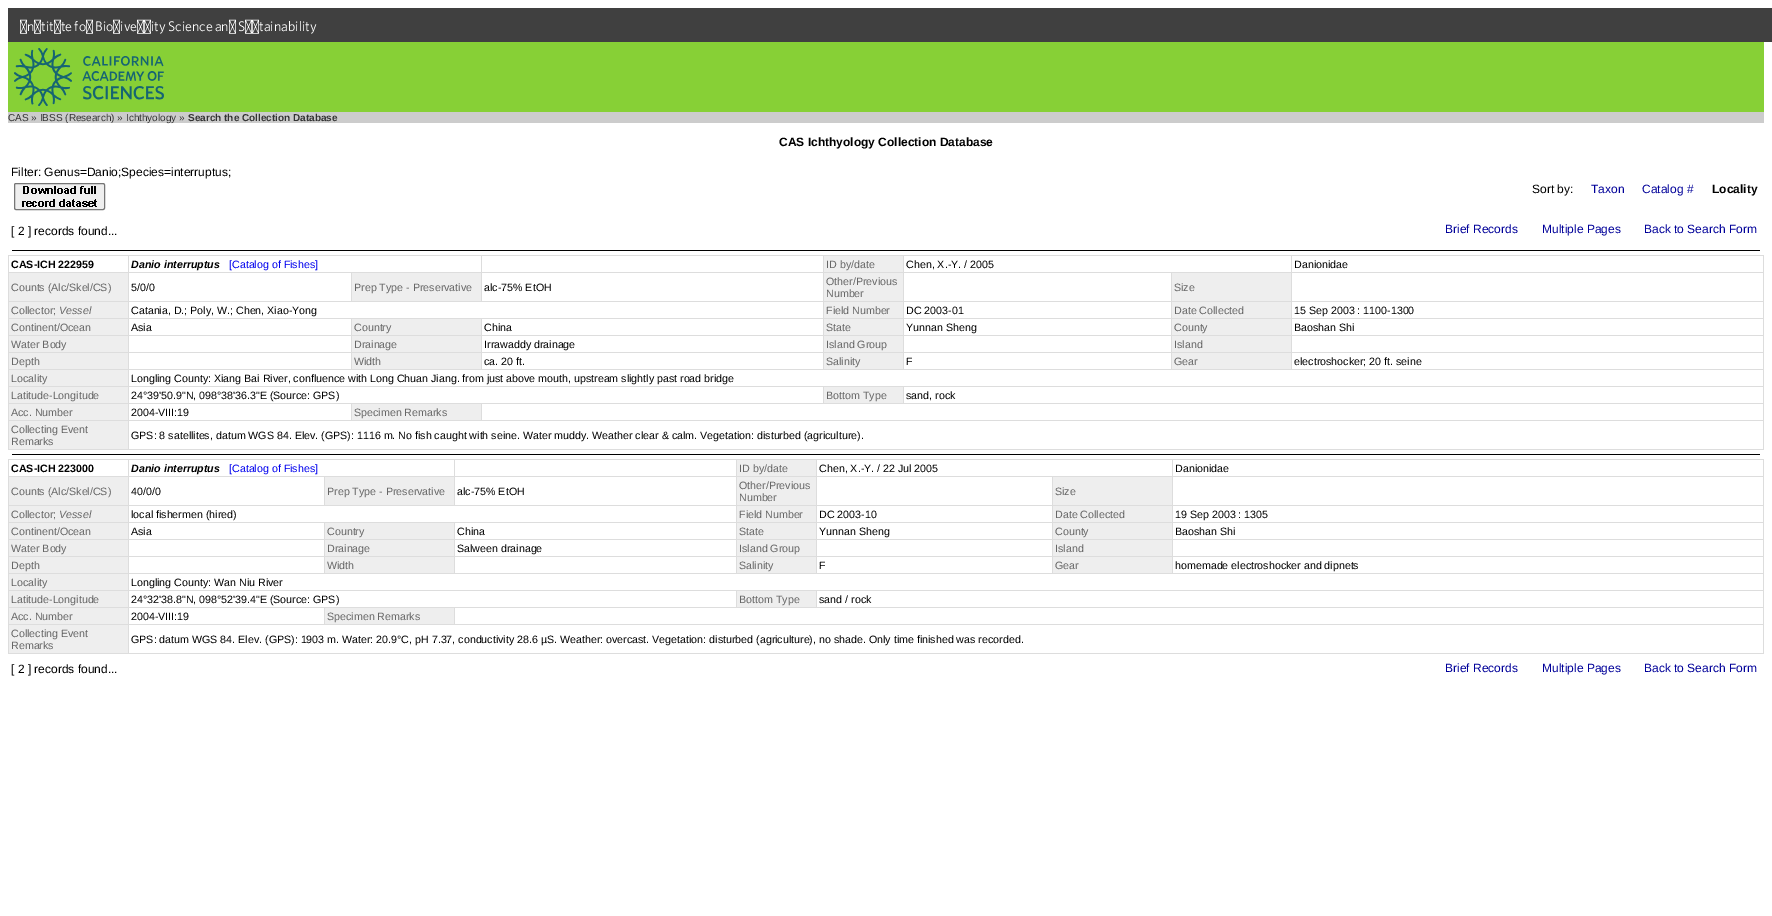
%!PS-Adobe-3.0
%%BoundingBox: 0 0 1772 916
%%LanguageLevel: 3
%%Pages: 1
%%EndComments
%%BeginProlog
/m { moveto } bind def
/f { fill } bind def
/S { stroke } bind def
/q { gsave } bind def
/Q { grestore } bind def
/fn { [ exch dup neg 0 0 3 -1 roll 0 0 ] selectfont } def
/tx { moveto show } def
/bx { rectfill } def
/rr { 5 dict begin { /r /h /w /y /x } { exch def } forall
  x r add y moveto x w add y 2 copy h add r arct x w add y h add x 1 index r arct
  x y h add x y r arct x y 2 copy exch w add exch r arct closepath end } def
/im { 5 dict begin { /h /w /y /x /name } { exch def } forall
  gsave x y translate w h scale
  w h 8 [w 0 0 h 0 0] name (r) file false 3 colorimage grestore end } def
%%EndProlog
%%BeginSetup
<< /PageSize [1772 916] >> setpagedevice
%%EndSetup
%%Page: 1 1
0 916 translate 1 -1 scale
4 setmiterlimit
1 setgray
0 0 1772 916 bx
0.251 setgray
8 8 1764 34 bx
/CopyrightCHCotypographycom-Light 14 fn
1 setgray
20 31 m -1 0 32 (Institute for Biodiversity Science and Sustainability) widthshow
0.529 0.816 0.212 setrgbcolor
8 42 1756 70 bx
(image0.raw) 14 48 150 58 im
0.8 setgray
8 112 1756 11 bx
/LiberationSans-Regular 10 fn
0.2 setgray
(CAS » IBSS \(Research\) » Ichthyology ») 8 121 tx
/LiberationSans-Bold 10 fn
(Search the Collection Database) 188 121 tx
/LiberationSans-Bold 12 fn
0 setgray
(CAS Ichthyology Collection Database) 779 146 tx
/LiberationSans-Regular 12 fn
(Filter: Genus=Danio;Species=interruptus;) 11 176 tx
0.937 setgray
14.5 183.5 90 26 1.5 rr q f Q
0.463 setgray
S
(image1.raw) 22 186 75 21 im
0 setgray
(Sort by:) 1532 193 tx
0 0 0.6 setrgbcolor
(Taxon) 1591 193 tx
(Catalog #) 1642 193 tx
/LiberationSans-Bold 12 fn
0 setgray
(Locality) 1712 193 tx
/LiberationSans-Regular 12 fn
([ 2 ] records found...) 11 235 tx
0 0 0.6 setrgbcolor
(Brief Records) 1445 233 tx
(Multiple Pages) 1542 233 tx
(Back to Search Form) 1644 233 tx
0 setgray
12 250 1748 1 bx
0.867 setgray
8 255 1756 195 bx
1 setgray
9 256 119 16 bx
/LiberationSans-Bold 10.67 fn
0 setgray
(CAS-ICH 222959) 11 268 tx
1 setgray
129 256 352 16 bx
/LiberationSans-BoldItalic 10.67 fn
0 setgray
(Danio interruptus) 131 268 tx
/LiberationSans-Regular 10.67 fn
0 0 0.933 setrgbcolor
([Catalog of Fishes]) 229 268 tx
1 setgray
482 256 341 16 bx
0.933 setgray
824 256 79 16 bx
0.4 setgray
(ID by/date) 826 268 tx
1 setgray
904 256 387 16 bx
0 setgray
(Chen, X.-Y. / 2005) 906 268 tx
1 setgray
1292 256 471 16 bx
0 setgray
(Danionidae) 1294 268 tx
0.933 setgray
9 273 119 28 bx
0.4 setgray
(Counts \(Alc/Skel/CS\)) 11 291 tx
1 setgray
129 273 222 28 bx
0 setgray
(5/0/0) 131 291 tx
0.933 setgray
352 273 129 28 bx
0.4 setgray
(Prep Type - Preservative) 354 291 tx
1 setgray
482 273 341 28 bx
0 setgray
(alc-75% EtOH) 484 291 tx
0.933 setgray
824 273 79 28 bx
0.4 setgray
(Other/Previous) 826 285 tx
(Number) 826 297 tx
1 setgray
904 273 267 28 bx
0.933 setgray
1172 273 119 28 bx
0.4 setgray
(Size) 1174 291 tx
1 setgray
1292 273 471 28 bx
0.933 setgray
9 302 119 16 bx
0.4 setgray
(Collector;) 11 314 tx
/LiberationSans-Italic 10.67 fn
(Vessel) 59 314 tx
1 setgray
129 302 694 16 bx
/LiberationSans-Regular 10.67 fn
0 setgray
(Catania, D.; Poly, W.; Chen, Xiao-Yong) 131 314 tx
0.933 setgray
824 302 79 16 bx
0.4 setgray
(Field Number) 826 314 tx
1 setgray
904 302 267 16 bx
0 setgray
(DC 2003-01) 906 314 tx
0.933 setgray
1172 302 119 16 bx
0.4 setgray
(Date Collected) 1174 314 tx
1 setgray
1292 302 471 16 bx
0 setgray
(15 Sep 2003 : 1100-1300) 1294 314 tx
0.933 setgray
9 319 119 16 bx
0.4 setgray
(Continent/Ocean) 11 331 tx
1 setgray
129 319 222 16 bx
0 setgray
(Asia) 131 331 tx
0.933 setgray
352 319 129 16 bx
0.4 setgray
(Country) 354 331 tx
1 setgray
482 319 341 16 bx
0 setgray
(China) 484 331 tx
0.933 setgray
824 319 79 16 bx
0.4 setgray
(State) 826 331 tx
1 setgray
904 319 267 16 bx
0 setgray
(Yunnan Sheng) 906 331 tx
0.933 setgray
1172 319 119 16 bx
0.4 setgray
(County) 1174 331 tx
1 setgray
1292 319 471 16 bx
0 setgray
(Baoshan Shi) 1294 331 tx
0.933 setgray
9 336 119 16 bx
0.4 setgray
(Water Body) 11 348 tx
1 setgray
129 336 222 16 bx
0.933 setgray
352 336 129 16 bx
0.4 setgray
(Drainage) 354 348 tx
1 setgray
482 336 341 16 bx
0 setgray
(Irrawaddy drainage) 484 348 tx
0.933 setgray
824 336 79 16 bx
0.4 setgray
(Island Group) 826 348 tx
1 setgray
904 336 267 16 bx
0.933 setgray
1172 336 119 16 bx
0.4 setgray
(Island) 1174 348 tx
1 setgray
1292 336 471 16 bx
0.933 setgray
9 353 119 16 bx
0.4 setgray
(Depth) 11 365 tx
1 setgray
129 353 222 16 bx
0.933 setgray
352 353 129 16 bx
0.4 setgray
(Width) 354 365 tx
1 setgray
482 353 341 16 bx
0 setgray
(ca. 20 ft.) 484 365 tx
0.933 setgray
824 353 79 16 bx
0.4 setgray
(Salinity) 826 365 tx
1 setgray
904 353 267 16 bx
0 setgray
(F) 906 365 tx
0.933 setgray
1172 353 119 16 bx
0.4 setgray
(Gear) 1174 365 tx
1 setgray
1292 353 471 16 bx
0 setgray
(electroshocker; 20 ft. seine) 1294 365 tx
0.933 setgray
9 370 119 16 bx
0.4 setgray
(Locality) 11 382 tx
1 setgray
129 370 1634 16 bx
0 setgray
(Longling County: Xiang Bai River, confluence with Long Chuan Jiang. from just above mouth, upstream slightly past road bridge) 131 382 tx
0.933 setgray
9 387 119 16 bx
0.4 setgray
(Latitude-Longitude) 11 399 tx
1 setgray
129 387 694 16 bx
0 setgray
(24°39'50.9"N, 098°38'36.3"E \(Source: GPS\)) 131 399 tx
0.933 setgray
824 387 79 16 bx
0.4 setgray
(Bottom Type) 826 399 tx
1 setgray
904 387 859 16 bx
0 setgray
(sand, rock) 906 399 tx
0.933 setgray
9 404 119 16 bx
0.4 setgray
(Acc. Number) 11 416 tx
1 setgray
129 404 222 16 bx
0 setgray
(2004-VIII:19) 131 416 tx
0.933 setgray
352 404 129 16 bx
0.4 setgray
(Specimen Remarks) 354 416 tx
1 setgray
482 404 1281 16 bx
0.933 setgray
9 421 119 28 bx
0.4 setgray
(Collecting Event) 11 433 tx
(Remarks) 11 445 tx
1 setgray
129 421 1634 28 bx
0 setgray
(GPS: 8 satellites, datum WGS 84. Elev. \(GPS\): 1116 m. No fish caught with seine. Water muddy. Weather clear & calm. Vegetation: disturbed \(agriculture\).) 131 439 tx
12 454 1748 1 bx
0.867 setgray
8 459 1756 195 bx
1 setgray
9 460 119 16 bx
/LiberationSans-Bold 10.67 fn
0 setgray
(CAS-ICH 223000) 11 472 tx
1 setgray
129 460 325 16 bx
/LiberationSans-BoldItalic 10.67 fn
0 setgray
(Danio interruptus) 131 472 tx
/LiberationSans-Regular 10.67 fn
0 0 0.933 setrgbcolor
([Catalog of Fishes]) 229 472 tx
1 setgray
455 460 281 16 bx
0.933 setgray
737 460 79 16 bx
0.4 setgray
(ID by/date) 739 472 tx
1 setgray
817 460 355 16 bx
0 setgray
(Chen, X.-Y. / 22 Jul 2005) 819 472 tx
1 setgray
1173 460 590 16 bx
0 setgray
(Danionidae) 1175 472 tx
0.933 setgray
9 477 119 28 bx
0.4 setgray
(Counts \(Alc/Skel/CS\)) 11 495 tx
1 setgray
129 477 195 28 bx
0 setgray
(40/0/0) 131 495 tx
0.933 setgray
325 477 129 28 bx
0.4 setgray
(Prep Type - Preservative) 327 495 tx
1 setgray
455 477 281 28 bx
0 setgray
(alc-75% EtOH) 457 495 tx
0.933 setgray
737 477 79 28 bx
0.4 setgray
(Other/Previous) 739 489 tx
(Number) 739 501 tx
1 setgray
817 477 235 28 bx
0.933 setgray
1053 477 119 28 bx
0.4 setgray
(Size) 1055 495 tx
1 setgray
1173 477 590 28 bx
0.933 setgray
9 506 119 16 bx
0.4 setgray
(Collector;) 11 518 tx
/LiberationSans-Italic 10.67 fn
(Vessel) 59 518 tx
1 setgray
129 506 607 16 bx
/LiberationSans-Regular 10.67 fn
0 setgray
(local fishermen \(hired\)) 131 518 tx
0.933 setgray
737 506 79 16 bx
0.4 setgray
(Field Number) 739 518 tx
1 setgray
817 506 235 16 bx
0 setgray
(DC 2003-10) 819 518 tx
0.933 setgray
1053 506 119 16 bx
0.4 setgray
(Date Collected) 1055 518 tx
1 setgray
1173 506 590 16 bx
0 setgray
(19 Sep 2003 : 1305) 1175 518 tx
0.933 setgray
9 523 119 16 bx
0.4 setgray
(Continent/Ocean) 11 535 tx
1 setgray
129 523 195 16 bx
0 setgray
(Asia) 131 535 tx
0.933 setgray
325 523 129 16 bx
0.4 setgray
(Country) 327 535 tx
1 setgray
455 523 281 16 bx
0 setgray
(China) 457 535 tx
0.933 setgray
737 523 79 16 bx
0.4 setgray
(State) 739 535 tx
1 setgray
817 523 235 16 bx
0 setgray
(Yunnan Sheng) 819 535 tx
0.933 setgray
1053 523 119 16 bx
0.4 setgray
(County) 1055 535 tx
1 setgray
1173 523 590 16 bx
0 setgray
(Baoshan Shi) 1175 535 tx
0.933 setgray
9 540 119 16 bx
0.4 setgray
(Water Body) 11 552 tx
1 setgray
129 540 195 16 bx
0.933 setgray
325 540 129 16 bx
0.4 setgray
(Drainage) 327 552 tx
1 setgray
455 540 281 16 bx
0 setgray
(Salween drainage) 457 552 tx
0.933 setgray
737 540 79 16 bx
0.4 setgray
(Island Group) 739 552 tx
1 setgray
817 540 235 16 bx
0.933 setgray
1053 540 119 16 bx
0.4 setgray
(Island) 1055 552 tx
1 setgray
1173 540 590 16 bx
0.933 setgray
9 557 119 16 bx
0.4 setgray
(Depth) 11 569 tx
1 setgray
129 557 195 16 bx
0.933 setgray
325 557 129 16 bx
0.4 setgray
(Width) 327 569 tx
1 setgray
455 557 281 16 bx
0.933 setgray
737 557 79 16 bx
0.4 setgray
(Salinity) 739 569 tx
1 setgray
817 557 235 16 bx
0 setgray
(F) 819 569 tx
0.933 setgray
1053 557 119 16 bx
0.4 setgray
(Gear) 1055 569 tx
1 setgray
1173 557 590 16 bx
0 setgray
(homemade electroshocker and dipnets) 1175 569 tx
0.933 setgray
9 574 119 16 bx
0.4 setgray
(Locality) 11 586 tx
1 setgray
129 574 1634 16 bx
0 setgray
(Longling County: Wan Niu River) 131 586 tx
0.933 setgray
9 591 119 16 bx
0.4 setgray
(Latitude-Longitude) 11 603 tx
1 setgray
129 591 607 16 bx
0 setgray
(24°32'38.8"N, 098°52'39.4"E \(Source: GPS\)) 131 603 tx
0.933 setgray
737 591 79 16 bx
0.4 setgray
(Bottom Type) 739 603 tx
1 setgray
817 591 946 16 bx
0 setgray
(sand / rock) 819 603 tx
0.933 setgray
9 608 119 16 bx
0.4 setgray
(Acc. Number) 11 620 tx
1 setgray
129 608 195 16 bx
0 setgray
(2004-VIII:19) 131 620 tx
0.933 setgray
325 608 129 16 bx
0.4 setgray
(Specimen Remarks) 327 620 tx
1 setgray
455 608 1308 16 bx
0.933 setgray
9 625 119 28 bx
0.4 setgray
(Collecting Event) 11 637 tx
(Remarks) 11 649 tx
1 setgray
129 625 1634 28 bx
0 setgray
(GPS: datum WGS 84. Elev. \(GPS\): 1903 m. Water: 20.9°C, pH 7.37, conductivity 28.6 µS. Weather: overcast. Vegetation: disturbed \(agriculture\), no shade. Only time finished was recorded.) 131 643 tx
/LiberationSans-Regular 12 fn
([ 2 ] records found...) 11 673 tx
0 0 0.6 setrgbcolor
(Brief Records) 1445 672 tx
(Multiple Pages) 1542 672 tx
(Back to Search Form) 1644 672 tx
showpage
%%EOF
